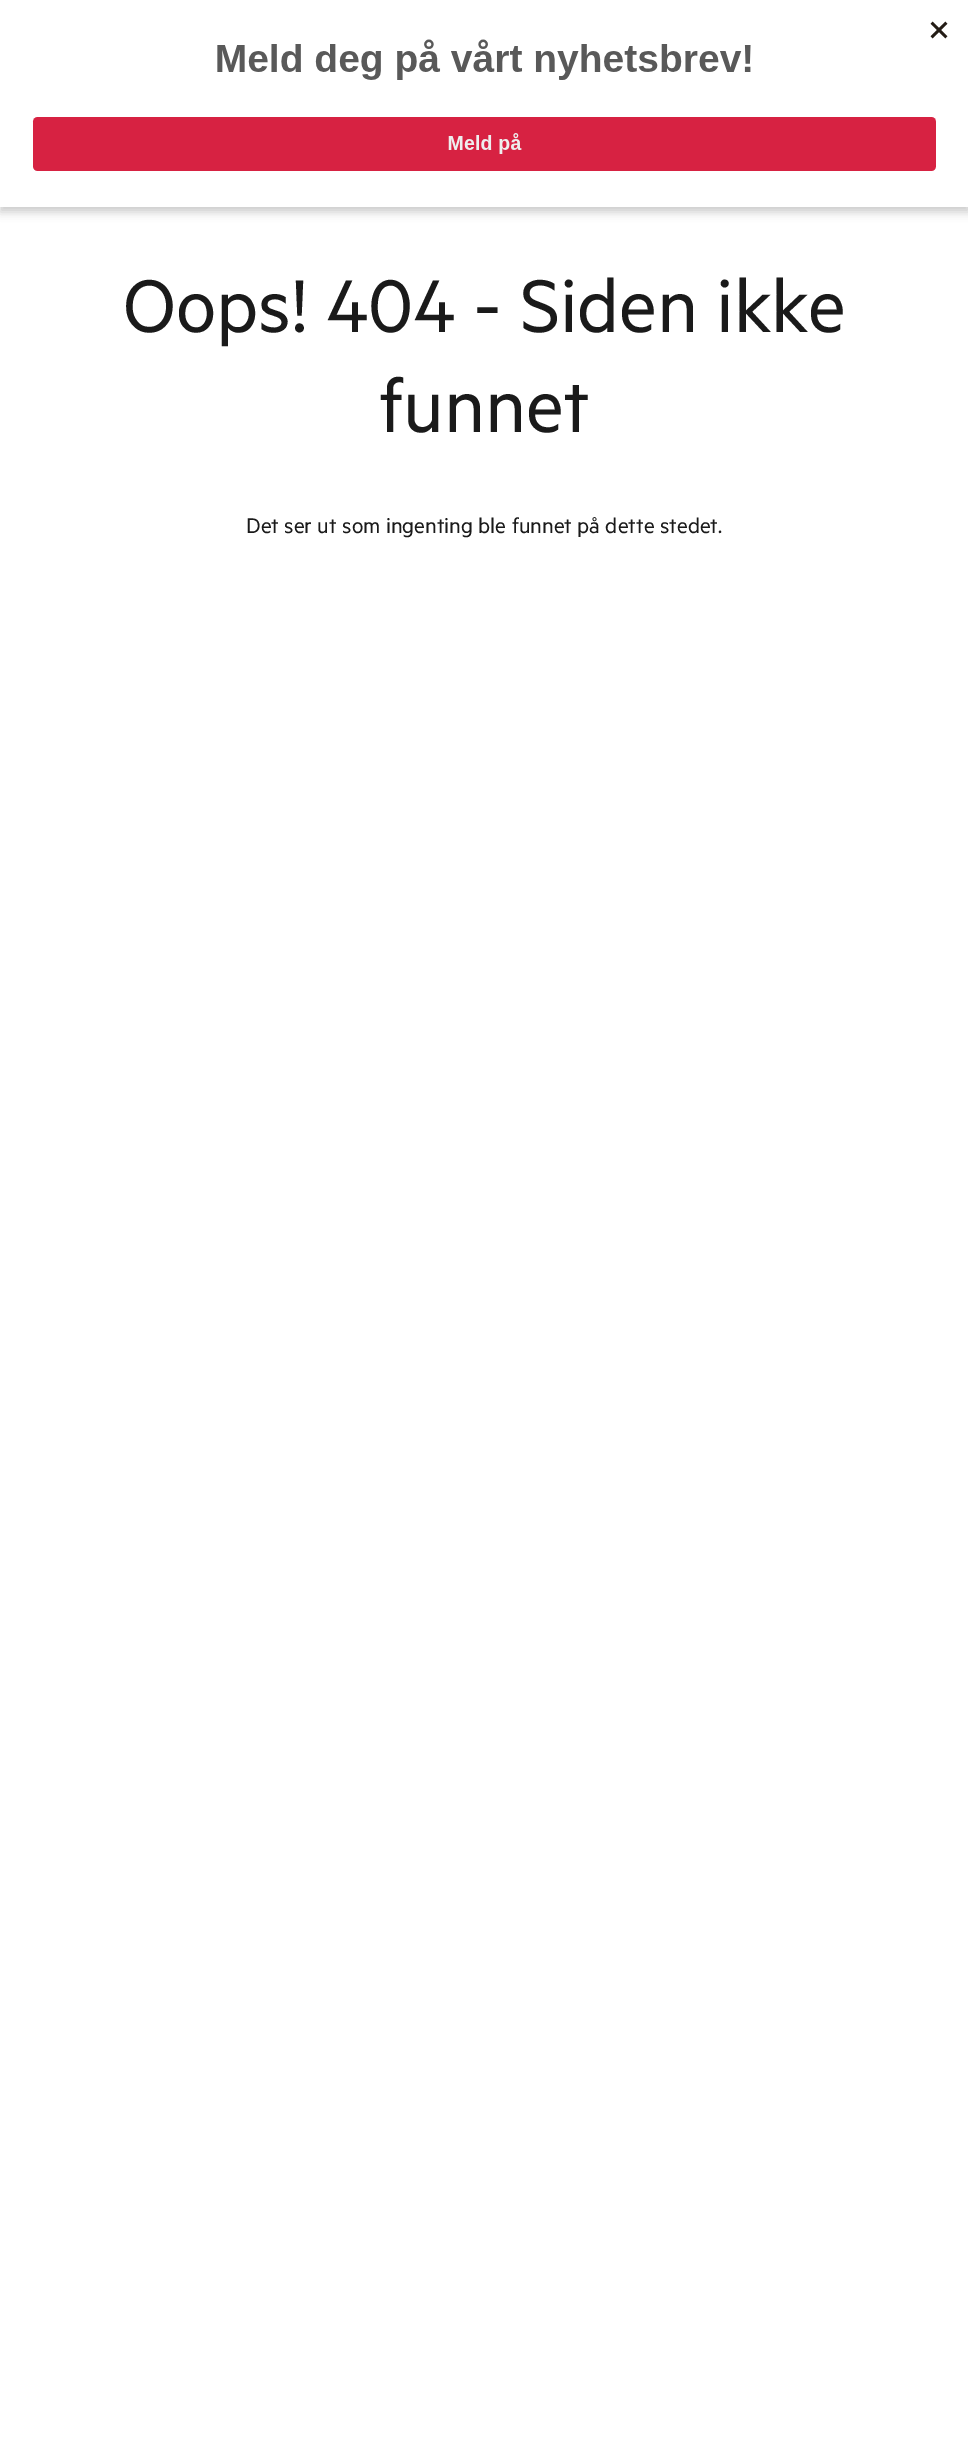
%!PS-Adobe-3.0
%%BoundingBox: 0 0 968 2439
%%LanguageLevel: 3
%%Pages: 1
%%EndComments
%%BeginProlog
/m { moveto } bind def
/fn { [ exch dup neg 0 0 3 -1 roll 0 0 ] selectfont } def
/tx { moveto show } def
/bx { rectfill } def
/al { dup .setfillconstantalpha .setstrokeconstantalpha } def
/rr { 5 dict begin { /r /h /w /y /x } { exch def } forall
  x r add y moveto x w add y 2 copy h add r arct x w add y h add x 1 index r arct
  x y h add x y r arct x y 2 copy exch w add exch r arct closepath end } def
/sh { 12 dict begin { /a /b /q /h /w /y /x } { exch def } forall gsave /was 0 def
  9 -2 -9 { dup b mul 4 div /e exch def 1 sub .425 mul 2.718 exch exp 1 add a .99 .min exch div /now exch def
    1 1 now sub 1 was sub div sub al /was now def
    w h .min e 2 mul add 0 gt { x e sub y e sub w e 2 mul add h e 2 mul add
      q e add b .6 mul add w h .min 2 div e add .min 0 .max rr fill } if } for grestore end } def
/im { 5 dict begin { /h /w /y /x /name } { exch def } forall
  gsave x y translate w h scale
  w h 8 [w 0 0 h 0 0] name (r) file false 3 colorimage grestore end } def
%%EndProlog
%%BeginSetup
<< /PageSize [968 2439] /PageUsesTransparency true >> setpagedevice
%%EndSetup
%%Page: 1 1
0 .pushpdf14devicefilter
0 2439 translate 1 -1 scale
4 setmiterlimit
1 setgray
0 0 968 2439 bx
0 setgray
0 5 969 207 0 4.5 0.2 sh
1 setgray
0 0 968 207 bx
(image0.raw) 32 21 916 150 im
/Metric-Regular 84 fn
0.102 setgray
123 332 m -0.15 0 (Oops! 404 - Siden ikke) ashow
379 432 m -0.15 0 (funnet) ashow
/Metric-Regular 24 fn
(Det ser ut som ingenting ble funnet på dette stedet.) 246 533 tx
.poppdf14devicefilter showpage
%%EOF
